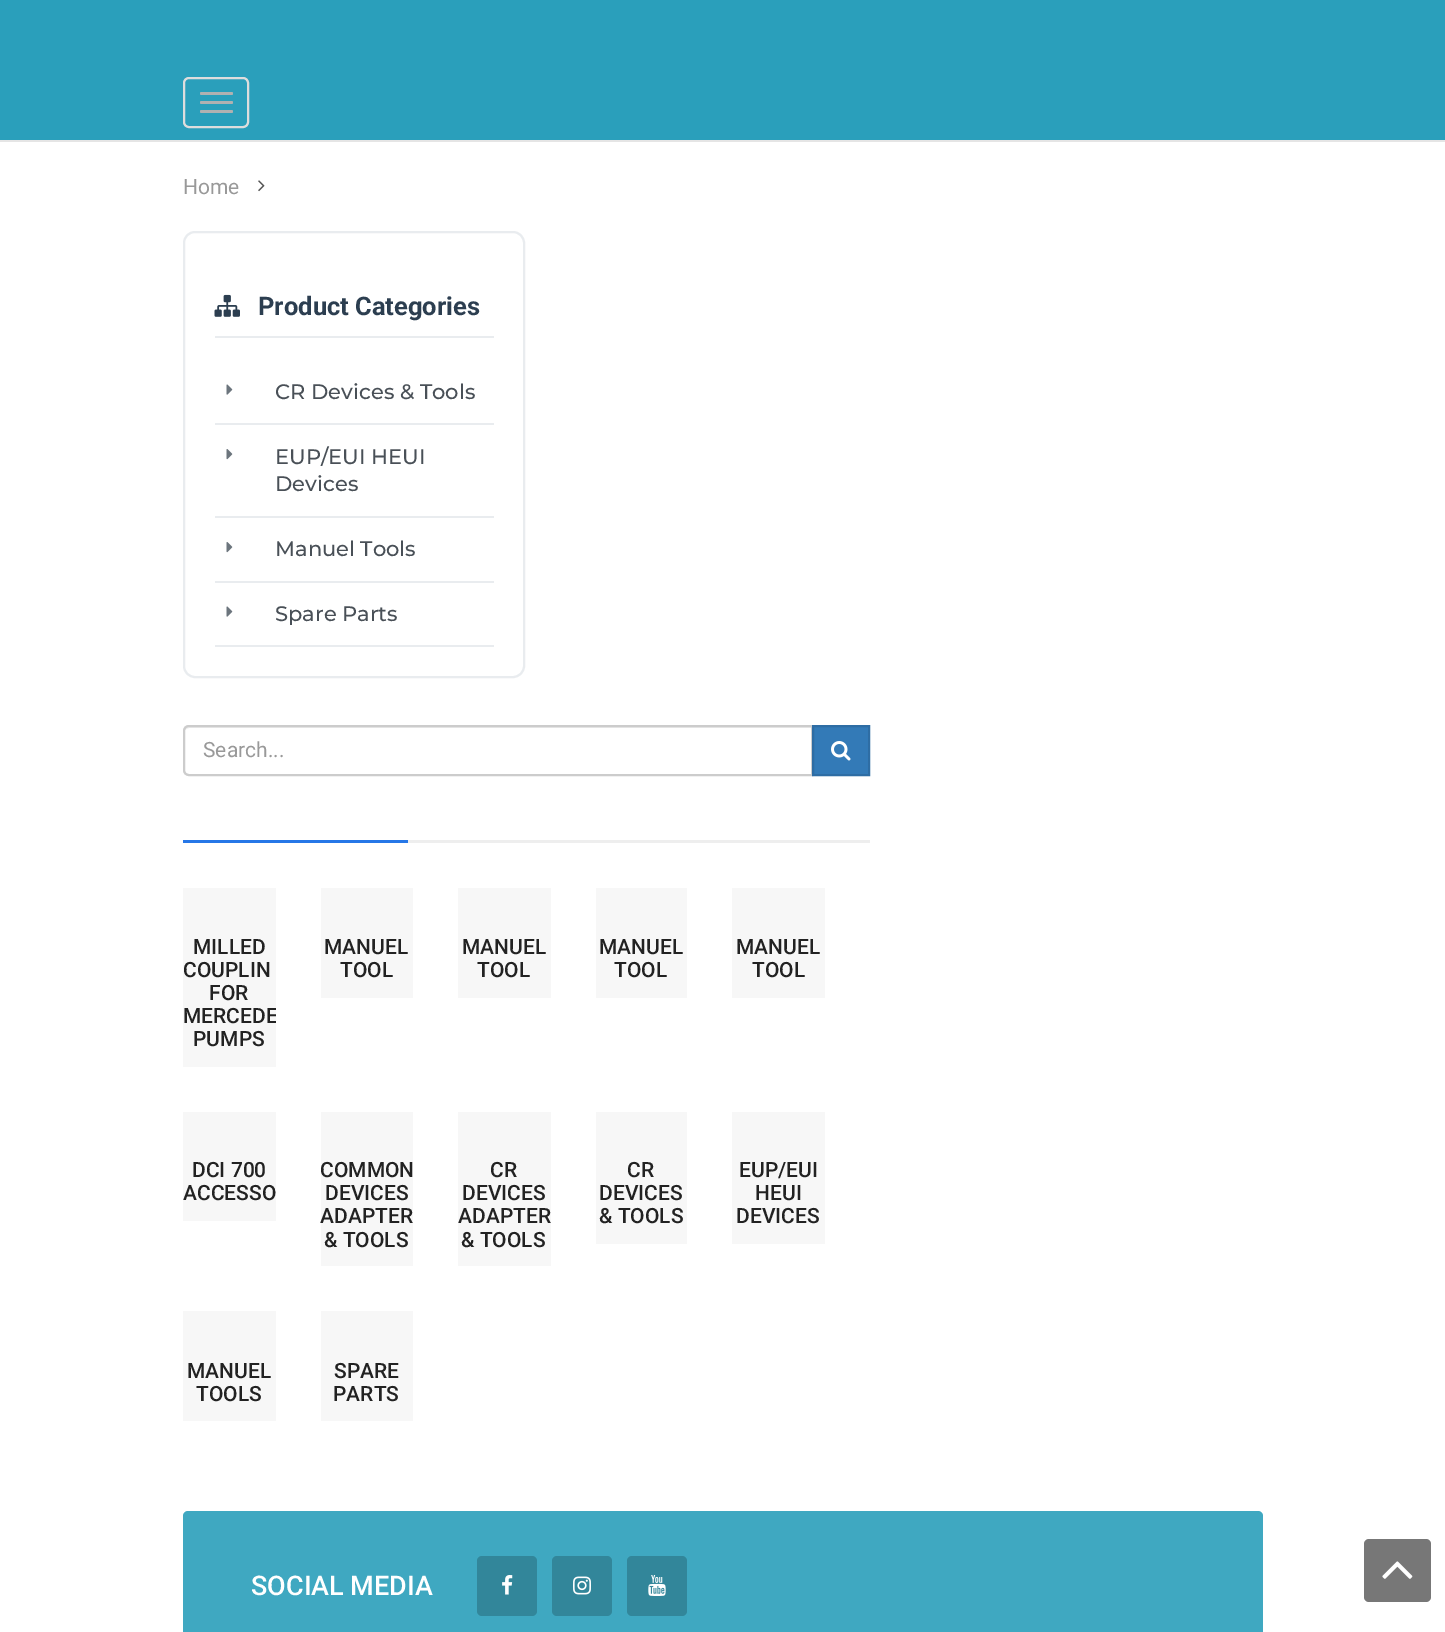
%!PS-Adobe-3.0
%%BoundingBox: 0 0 1445 1632
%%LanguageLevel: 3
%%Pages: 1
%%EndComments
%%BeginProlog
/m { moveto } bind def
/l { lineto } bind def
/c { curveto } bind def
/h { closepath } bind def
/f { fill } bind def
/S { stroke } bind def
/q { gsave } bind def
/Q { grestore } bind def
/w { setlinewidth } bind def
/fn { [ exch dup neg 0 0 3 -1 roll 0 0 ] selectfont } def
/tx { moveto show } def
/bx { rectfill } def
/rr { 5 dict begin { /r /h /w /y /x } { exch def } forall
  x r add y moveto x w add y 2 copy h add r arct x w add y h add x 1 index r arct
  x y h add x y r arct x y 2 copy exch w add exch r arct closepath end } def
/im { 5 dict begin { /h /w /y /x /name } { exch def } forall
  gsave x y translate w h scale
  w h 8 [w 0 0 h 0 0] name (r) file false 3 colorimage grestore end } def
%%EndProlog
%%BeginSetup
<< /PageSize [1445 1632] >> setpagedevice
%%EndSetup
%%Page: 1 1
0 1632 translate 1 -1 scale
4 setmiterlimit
1 setgray
0 0 1445 1632 bx
0.165 0.624 0.733 setrgbcolor
0 0 1445 140 bx
0.898 setgray
0 140 1445 2 bx
0.867 setgray
2 w
184 78 64 49 5 rr S
0.694 setgray
200 92 33 3 1.5 rr f
200 101 33 3 1.5 rr f
200 110 33 3 1.5 rr f
/Roboto-Regular 21 fn
0.6 setgray
(Home) 183 194 tx
(image0.raw) 258 180 7 12 im
0.914 0.925 0.937 setrgbcolor
184 232 340 445 11 rr S
215 336 279 2 bx
(image1.raw) 214 294 26 23 im
/Roboto-Bold 25.5 fn
0.173 0.243 0.314 setrgbcolor
(Product Categories) 258 315 tx
0.914 0.925 0.937 setrgbcolor
215 423 279 2 bx
(image2.raw) 226 384 7 11 im
/Montserrat-Medium 21 fn
0.286 0.314 0.341 setrgbcolor
(CR Devices & Tools) 275 399 tx
0.914 0.925 0.937 setrgbcolor
215 516 279 2 bx
(image3.raw) 226 449 7 11 im
0.286 0.314 0.341 setrgbcolor
(EUP/EUI HEUI) 275 464 tx
(Devices) 275 491 tx
0.914 0.925 0.937 setrgbcolor
215 581 279 2 bx
(image3.raw) 226 542 7 11 im
0.286 0.314 0.341 setrgbcolor
(Manuel Tools) 275 556 tx
0.914 0.925 0.937 setrgbcolor
215 645 279 2 bx
(image2.raw) 226 606 7 11 im
0.286 0.314 0.341 setrgbcolor
(Spare Parts) 275 621 tx
0.925 setgray
189 728 m 812 728 l 812 726 l 190 726 l 188 726 186 728 185 730 c 186 729 188 728 189 728 c h f
0.8 setgray
189 726 m 812 726 l 812 775 l 189 775 l 186 775 184 773 184 770 c 184 731 l 184 728 186 726 189 726 c h S
/Roboto-Regular 21 fn
0.6 setgray
(Search...) 203 757 tx
0.2 0.478 0.718 setrgbcolor
813 726 m 869 726 l 869 775 l 813 775 l h q f Q
0.18 0.427 0.643 setrgbcolor
S
(image4.raw) 831 741 20 20 im
0.149 0.467 0.906 setrgbcolor
183 840 225 3 bx
0.933 setgray
408 840 462 3 bx
0.969 setgray
183 888 93 179 bx
/Roboto-Medium 21 fn
0.133 setgray
(MILLED) 193 954 tx
(COUPLIN) 183 977 tx
(FOR) 209 1000 tx
q
183 888 93 179 rectclip
(MERCEDE) 183 1023 tx
Q
(PUMPS) 193 1046 tx
0.969 setgray
321 888 92 110 bx
0.133 setgray
(MANUEL) 324 954 tx
(TOOL) 340 977 tx
0.969 setgray
458 888 93 110 bx
0.133 setgray
(MANUEL) 462 954 tx
(TOOL) 477 977 tx
0.969 setgray
596 888 91 110 bx
0.133 setgray
(MANUEL) 599 954 tx
(TOOL) 614 977 tx
0.969 setgray
732 888 93 110 bx
0.133 setgray
(MANUEL) 736 954 tx
(TOOL) 752 977 tx
0.969 setgray
183 1112 93 109 bx
0.133 setgray
(DCI 700) 192 1177 tx
(ACCESSO) 183 1200 tx
0.969 setgray
321 1112 92 154 bx
0.133 setgray
(COMMON) 320 1177 tx
(DEVICES) 325 1200 tx
(ADAPTER) 320 1223 tx
(& TOOLS) 324 1247 tx
0.969 setgray
458 1112 93 154 bx
0.133 setgray
(CR) 490 1177 tx
(DEVICES) 462 1200 tx
(ADAPTER) 458 1223 tx
(& TOOLS) 461 1247 tx
0.969 setgray
596 1112 91 132 bx
0.133 setgray
(CR) 627 1177 tx
(DEVICES) 599 1200 tx
(& TOOLS) 599 1223 tx
0.969 setgray
732 1112 93 132 bx
0.133 setgray
(EUP/EUI) 739 1177 tx
(HEUI) 755 1200 tx
(DEVICES) 736 1223 tx
0.969 setgray
183 1311 93 110 bx
0.133 setgray
(MANUEL) 187 1378 tx
(TOOLS) 196 1401 tx
0.969 setgray
321 1311 92 110 bx
0.133 setgray
(SPARE) 334 1378 tx
(PARTS) 333 1401 tx
0.247 0.659 0.757 setrgbcolor
183 1511 1080 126 5 rr f
/Roboto-Medium 27 fn
1 setgray
(SOCIAL MEDIA) 251 1595 tx
0.196 0.525 0.604 setrgbcolor
477 1556 60 60 5 rr f
(image5.raw) 502 1575 11 20 im
552 1556 60 60 5 rr f
(image6.raw) 573 1576 18 19 im
627 1556 60 60 5 rr f
(image7.raw) 648 1575 18 21 im
0.467 setgray
1364 1539 67 63 5 rr f
(image8.raw) 1382 1561 31 18 im
showpage
%%EOF
